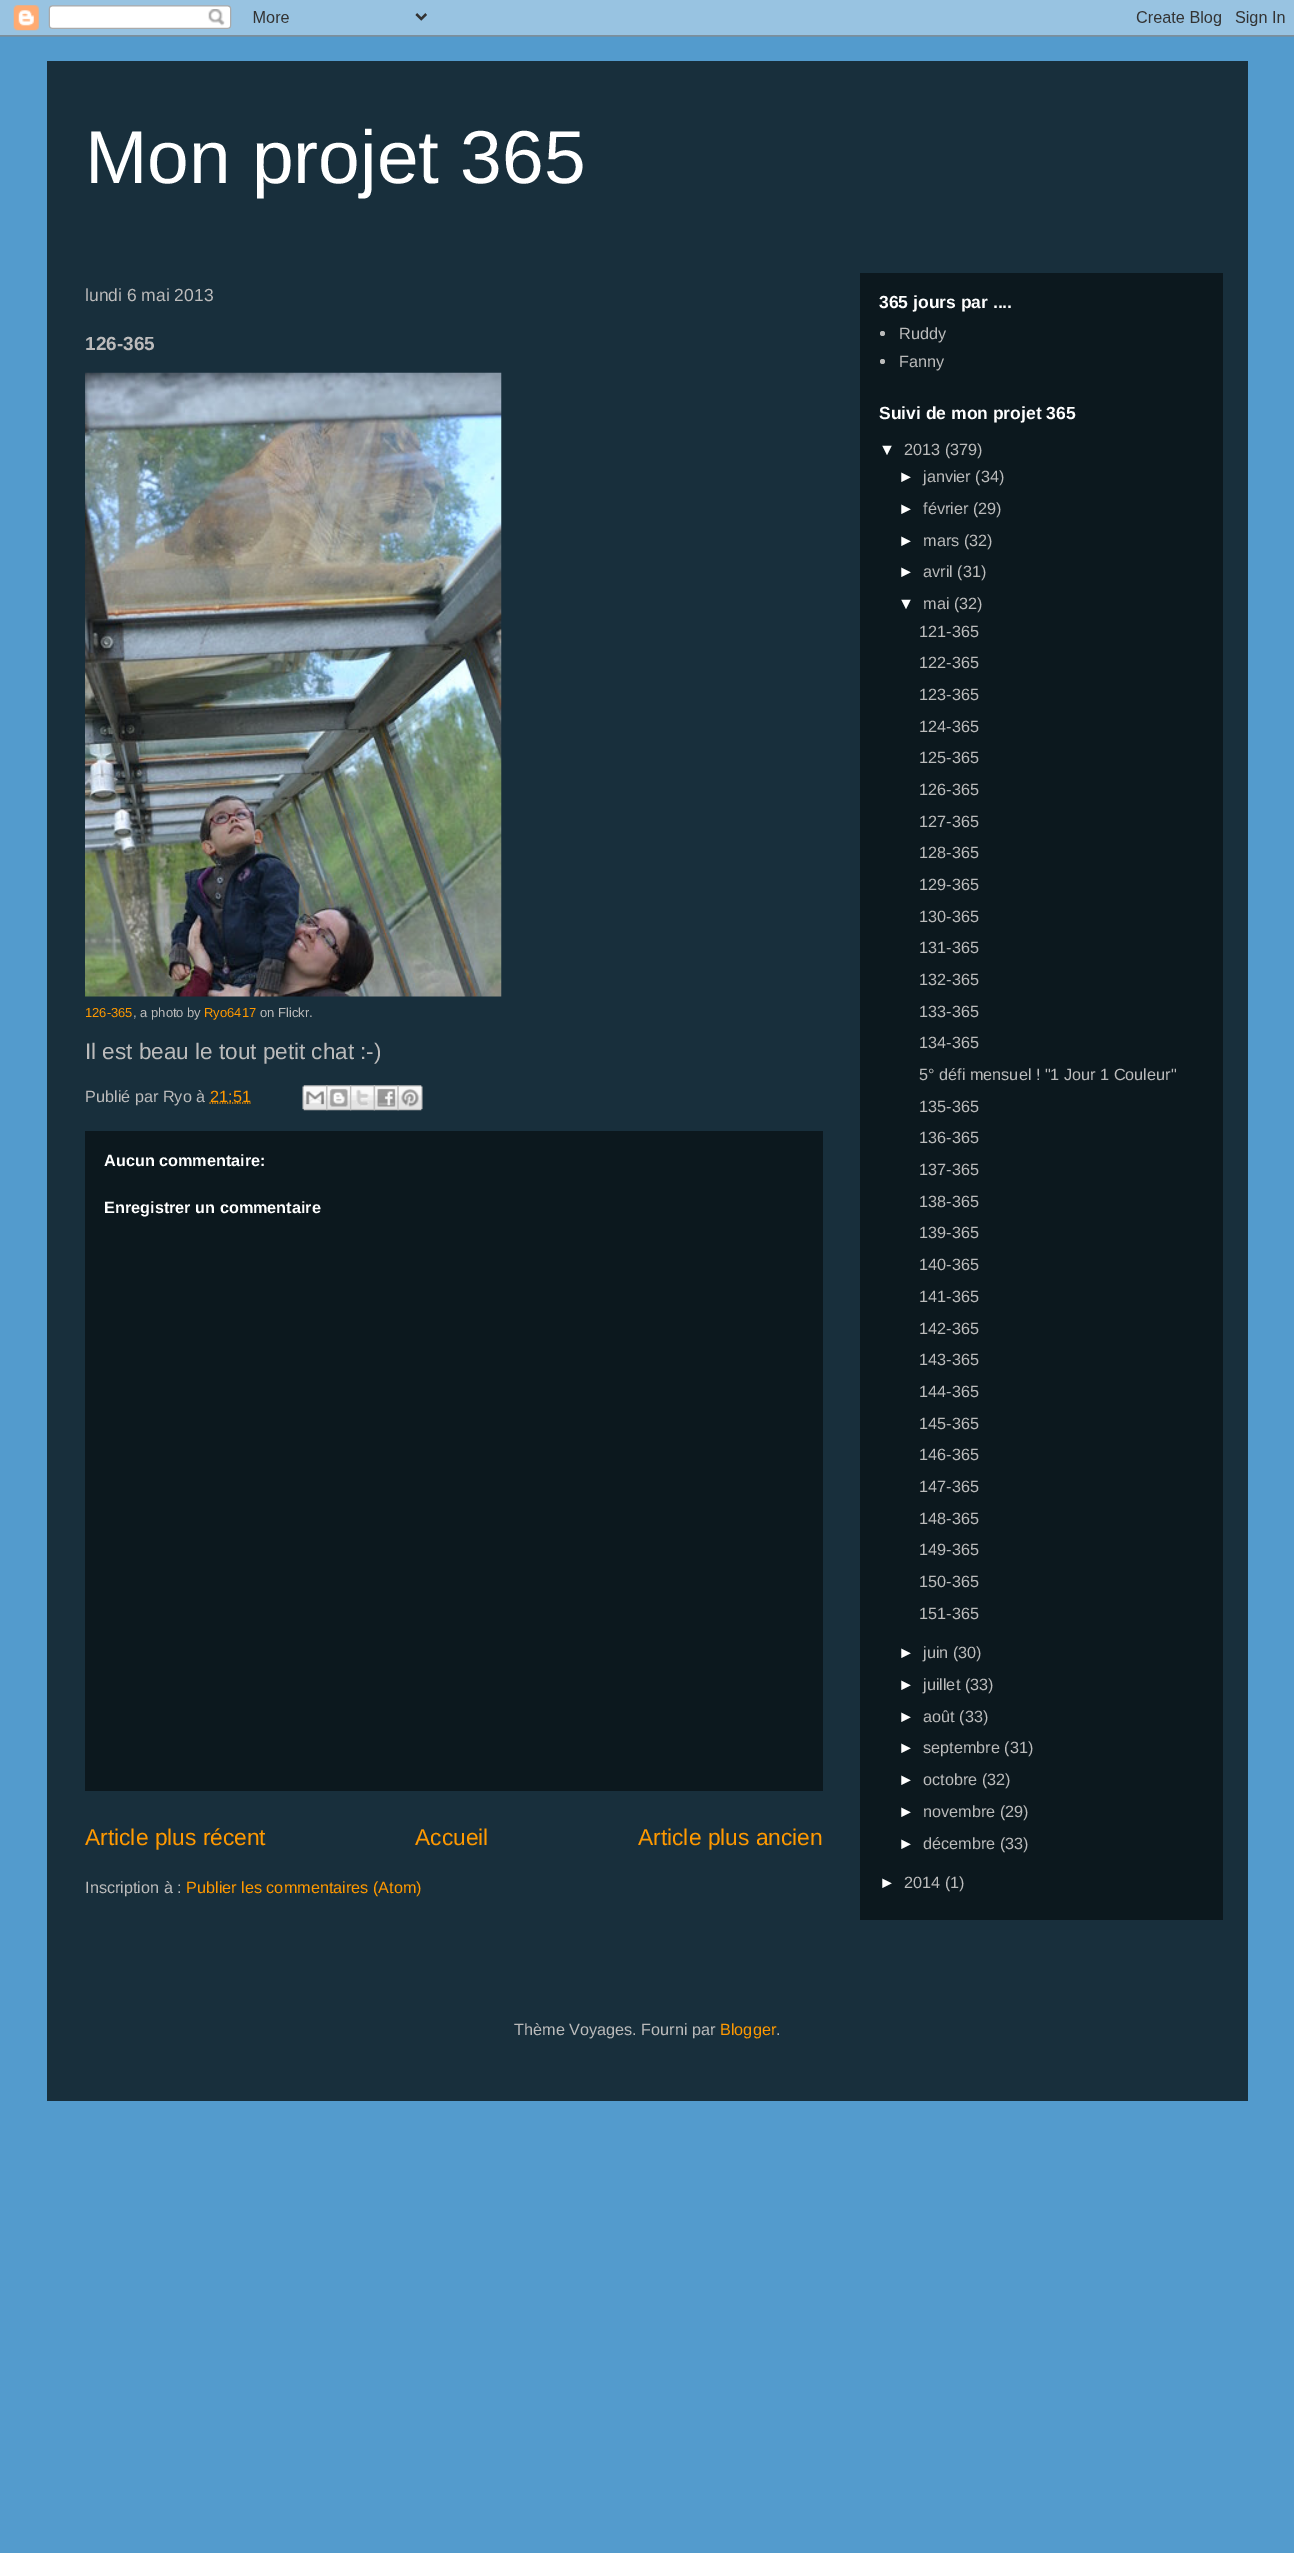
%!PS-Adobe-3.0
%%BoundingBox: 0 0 1294 2553
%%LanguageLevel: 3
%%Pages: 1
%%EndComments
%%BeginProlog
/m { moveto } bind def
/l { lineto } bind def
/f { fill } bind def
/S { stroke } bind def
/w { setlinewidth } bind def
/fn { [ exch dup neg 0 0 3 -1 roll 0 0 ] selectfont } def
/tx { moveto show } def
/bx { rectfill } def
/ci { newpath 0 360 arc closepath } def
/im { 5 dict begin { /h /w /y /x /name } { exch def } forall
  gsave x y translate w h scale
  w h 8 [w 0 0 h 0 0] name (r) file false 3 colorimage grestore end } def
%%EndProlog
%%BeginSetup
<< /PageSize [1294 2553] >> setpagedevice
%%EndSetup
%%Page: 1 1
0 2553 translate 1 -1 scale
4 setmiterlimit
0.325 0.608 0.804 setrgbcolor
0 0 1294 2553 bx
(image0.raw) 0 0 1294 37 im
0.094 0.184 0.235 setrgbcolor
47 61 1201 2040 bx
/LiberationSans-Regular 75 fn
1 setgray
(Mon projet 365) 85 183 tx
0.047 0.094 0.118 setrgbcolor
860 273 363 1647 bx
/LiberationSans-Regular 17.5 fn
0.733 setgray
(lundi 6 mai 2013) 85 301 tx
/LiberationSans-Bold 19 fn
(126-365) 85 350 tx
(image1.raw) 85 372 417 625 im
/LiberationSans-Regular 13 fn
1 0.6 0 setrgbcolor
(126-365) 85 1017 tx
0.733 setgray
(, a photo by) 133 1017 tx
1 0.6 0 setrgbcolor
(Ryo6417) 204 1017 tx
0.733 setgray
(on Flickr.) 260 1017 tx
/LiberationSans-Regular 22.5 fn
(Il est beau le tout petit chat :-\)) 85 1059 tx
/LiberationSans-Regular 16.25 fn
(Publié par Ryo à) 85 1102 tx
1 0.6 0 setrgbcolor
1.2 w
[1.25 1.25] 0 setdash
209.5 1103 m 250.5 1103 l S
(21:51) 210 1102 tx
(image2.raw) 302 1085 26 26 im
(image3.raw) 326 1085 26 26 im
(image4.raw) 350 1085 25 26 im
(image5.raw) 373 1085 26 26 im
(image6.raw) 397 1085 26 26 im
0.047 0.094 0.118 setrgbcolor
85 1131 738 660 bx
/LiberationSans-Bold 16.25 fn
1 setgray
(Aucun commentaire:) 104 1166 tx
(Enregistrer un commentaire) 104 1213 tx
/LiberationSans-Regular 22.75 fn
1 0.6 0 setrgbcolor
(Article plus récent) 85 1845 tx
(Accueil) 415 1845 tx
(Article plus ancien) 638 1845 tx
/LiberationSans-Regular 16.25 fn
0.733 setgray
(Inscription à :) 85 1893 tx
1 0.6 0 setrgbcolor
(Publier les commentaires \(Atom\)) 186 1893 tx
/LiberationSans-Bold 17.5 fn
1 setgray
(365 jours par ....) 879 308 tx
0.733 setgray
882.5 333.5 2.5 ci f
/LiberationSans-Regular 16.25 fn
(Ruddy) 899 339 tx
882.5 361.5 2.5 ci f
(Fanny) 899 367 tx
/LiberationSans-Bold 17.5 fn
1 setgray
(Suivi de mon projet 365) 879 419 tx
/LiberationSans-Regular 16.25 fn
(▼) 879 455 tx
0.733 setgray
(2013 \(379\)) 904 455 tx
1 setgray
(►) 898 482 tx
0.733 setgray
(janvier \(34\)) 923 482 tx
1 setgray
(►) 898 514 tx
0.733 setgray
(février \(29\)) 923 514 tx
1 setgray
(►) 898 546 tx
0.733 setgray
(mars \(32\)) 923 546 tx
1 setgray
(►) 898 577 tx
0.733 setgray
(avril \(31\)) 923 577 tx
1 setgray
(▼) 898 609 tx
0.733 setgray
(mai \(32\)) 923 609 tx
(121-365) 919 637 tx
(122-365) 919 668 tx
(123-365) 919 700 tx
(124-365) 919 732 tx
(125-365) 919 763 tx
(126-365) 919 795 tx
(127-365) 919 827 tx
(128-365) 919 858 tx
(129-365) 919 890 tx
(130-365) 919 922 tx
(131-365) 919 953 tx
(132-365) 919 985 tx
(133-365) 919 1017 tx
(134-365) 919 1048 tx
(5° défi mensuel ! "1 Jour 1 Couleur") 919 1080 tx
(135-365) 919 1112 tx
(136-365) 919 1143 tx
(137-365) 919 1175 tx
(138-365) 919 1207 tx
(139-365) 919 1238 tx
(140-365) 919 1270 tx
(141-365) 919 1302 tx
(142-365) 919 1334 tx
(143-365) 919 1365 tx
(144-365) 919 1397 tx
(145-365) 919 1429 tx
(146-365) 919 1460 tx
(147-365) 919 1492 tx
(148-365) 919 1524 tx
(149-365) 919 1555 tx
(150-365) 919 1587 tx
(151-365) 919 1619 tx
1 setgray
(►) 898 1658 tx
0.733 setgray
(juin \(30\)) 923 1658 tx
1 setgray
(►) 898 1690 tx
0.733 setgray
(juillet \(33\)) 923 1690 tx
1 setgray
(►) 898 1722 tx
0.733 setgray
(août \(33\)) 923 1722 tx
1 setgray
(►) 898 1753 tx
0.733 setgray
(septembre \(31\)) 923 1753 tx
1 setgray
(►) 898 1785 tx
0.733 setgray
(octobre \(32\)) 923 1785 tx
1 setgray
(►) 898 1817 tx
0.733 setgray
(novembre \(29\)) 923 1817 tx
1 setgray
(►) 898 1849 tx
0.733 setgray
(décembre \(33\)) 923 1849 tx
1 setgray
(►) 879 1888 tx
0.733 setgray
(2014 \(1\)) 904 1888 tx
(Thème Voyages. Fourni par) 514 2035 tx
1 0.6 0 setrgbcolor
(Blogger) 720 2035 tx
0.733 setgray
(.) 776 2035 tx
showpage
%%EOF
